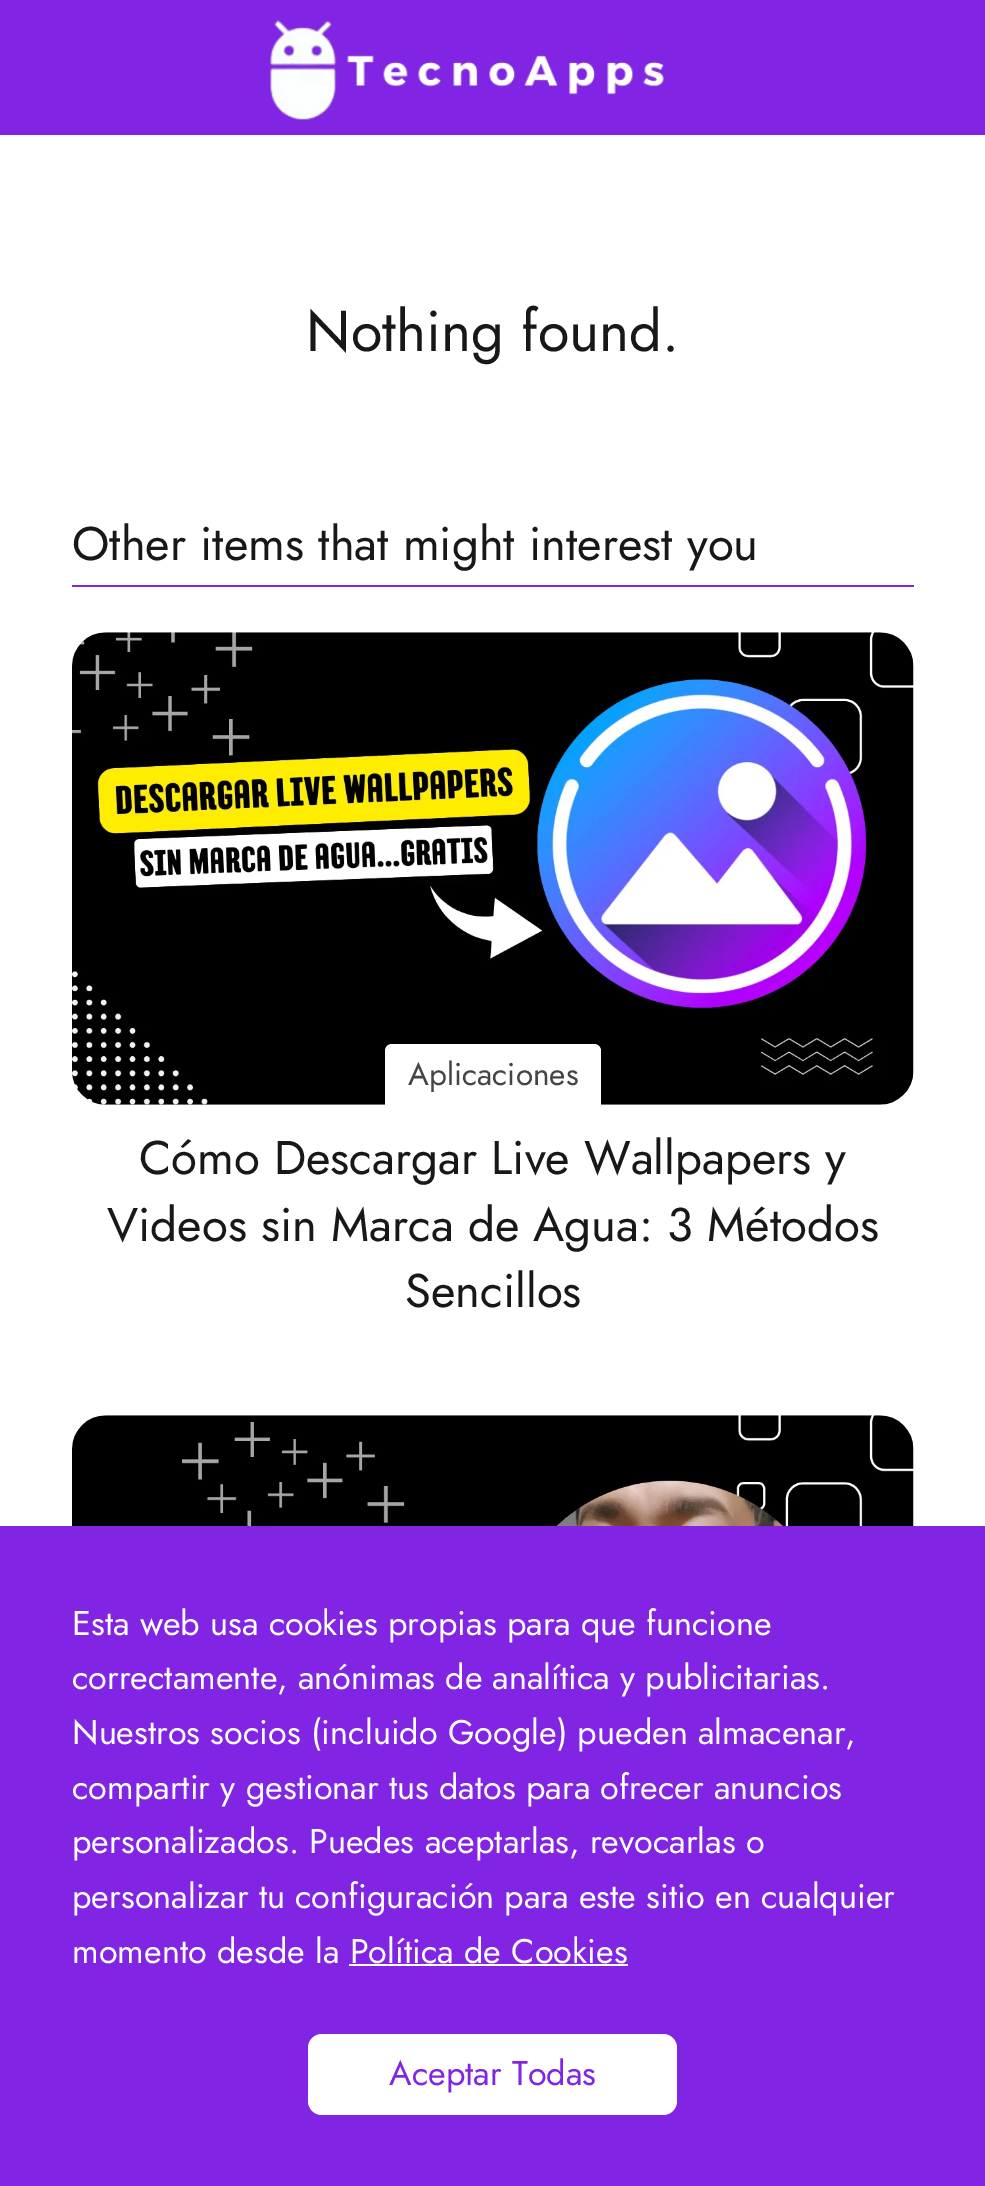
%!PS-Adobe-3.0
%%BoundingBox: 0 0 985 2186
%%LanguageLevel: 3
%%Pages: 1
%%EndComments
%%BeginProlog
/m { moveto } bind def
/l { lineto } bind def
/c { curveto } bind def
/h { closepath } bind def
/f { fill } bind def
/fn { [ exch dup neg 0 0 3 -1 roll 0 0 ] selectfont } def
/tx { moveto show } def
/bx { rectfill } def
/rr { 5 dict begin { /r /h /w /y /x } { exch def } forall
  x r add y moveto x w add y 2 copy h add r arct x w add y h add x 1 index r arct
  x y h add x y r arct x y 2 copy exch w add exch r arct closepath end } def
/im { 5 dict begin { /h /w /y /x /name } { exch def } forall
  gsave x y translate w h scale
  w h 8 [w 0 0 h 0 0] name (r) file false 3 colorimage grestore end } def
%%EndProlog
%%BeginSetup
<< /PageSize [985 2186] >> setpagedevice
%%EndSetup
%%Page: 1 1
0 2186 translate 1 -1 scale
4 setmiterlimit
1 setgray
0 0 985 2186 bx
0.51 0.141 0.89 setrgbcolor
0 0 985 135 bx
(image0.raw) 269 20 395 100 im
/Jost-Regular 57.5 fn
0.094 setgray
(Nothing found.) 306 351 tx
0.51 0.141 0.89 setrgbcolor
72 585 842 2 bx
/Jost-Regular 47.25 fn
0.094 setgray
(Other items that might interest you) 72 560 tx
(image1.raw) 72 632 842 473 im
1 setgray
392 1044 m 594 1044 l 598 1044 601 1047 601 1051 c 601 1105 l 385 1105 l 385 1051 l 385 1047 388 1044 392 1044 c h f
/Jost-Regular 31.5 fn
0.267 setgray
(Aplicaciones) 408 1085 tx
/Jost-Regular 47.25 fn
0.094 setgray
(Cómo Descargar Live Wallpapers y) 139 1174 tx
(Videos sin Marca de Agua: 3 Métodos) 107 1241 tx
(Sencillos) 405 1307 tx
(image2.raw) 72 1415 842 111 im
0.51 0.141 0.89 setrgbcolor
0 1526 985 660 bx
/Jost-Regular 34.2 fn
1 setgray
(Esta web usa cookies propias para que funcione) 72 1635 tx
(correctamente, anónimas de analítica y publicitarias.) 72 1689 tx
(Nuestros socios \(incluido Google\) pueden almacenar,) 72 1744 tx
(compartir y gestionar tus datos para ofrecer anuncios) 72 1799 tx
(personalizados. Puedes aceptarlas, revocarlas o) 72 1853 tx
(personalizar tu configuración para este sitio en cualquier) 72 1908 tx
(momento desde la Política de Cookies) 72 1963 tx
349 1964 279 2 bx
308 2034 369 81 14 rr f
0.51 0.141 0.89 setrgbcolor
(Aceptar Todas) 389 2085 tx
showpage
%%EOF
